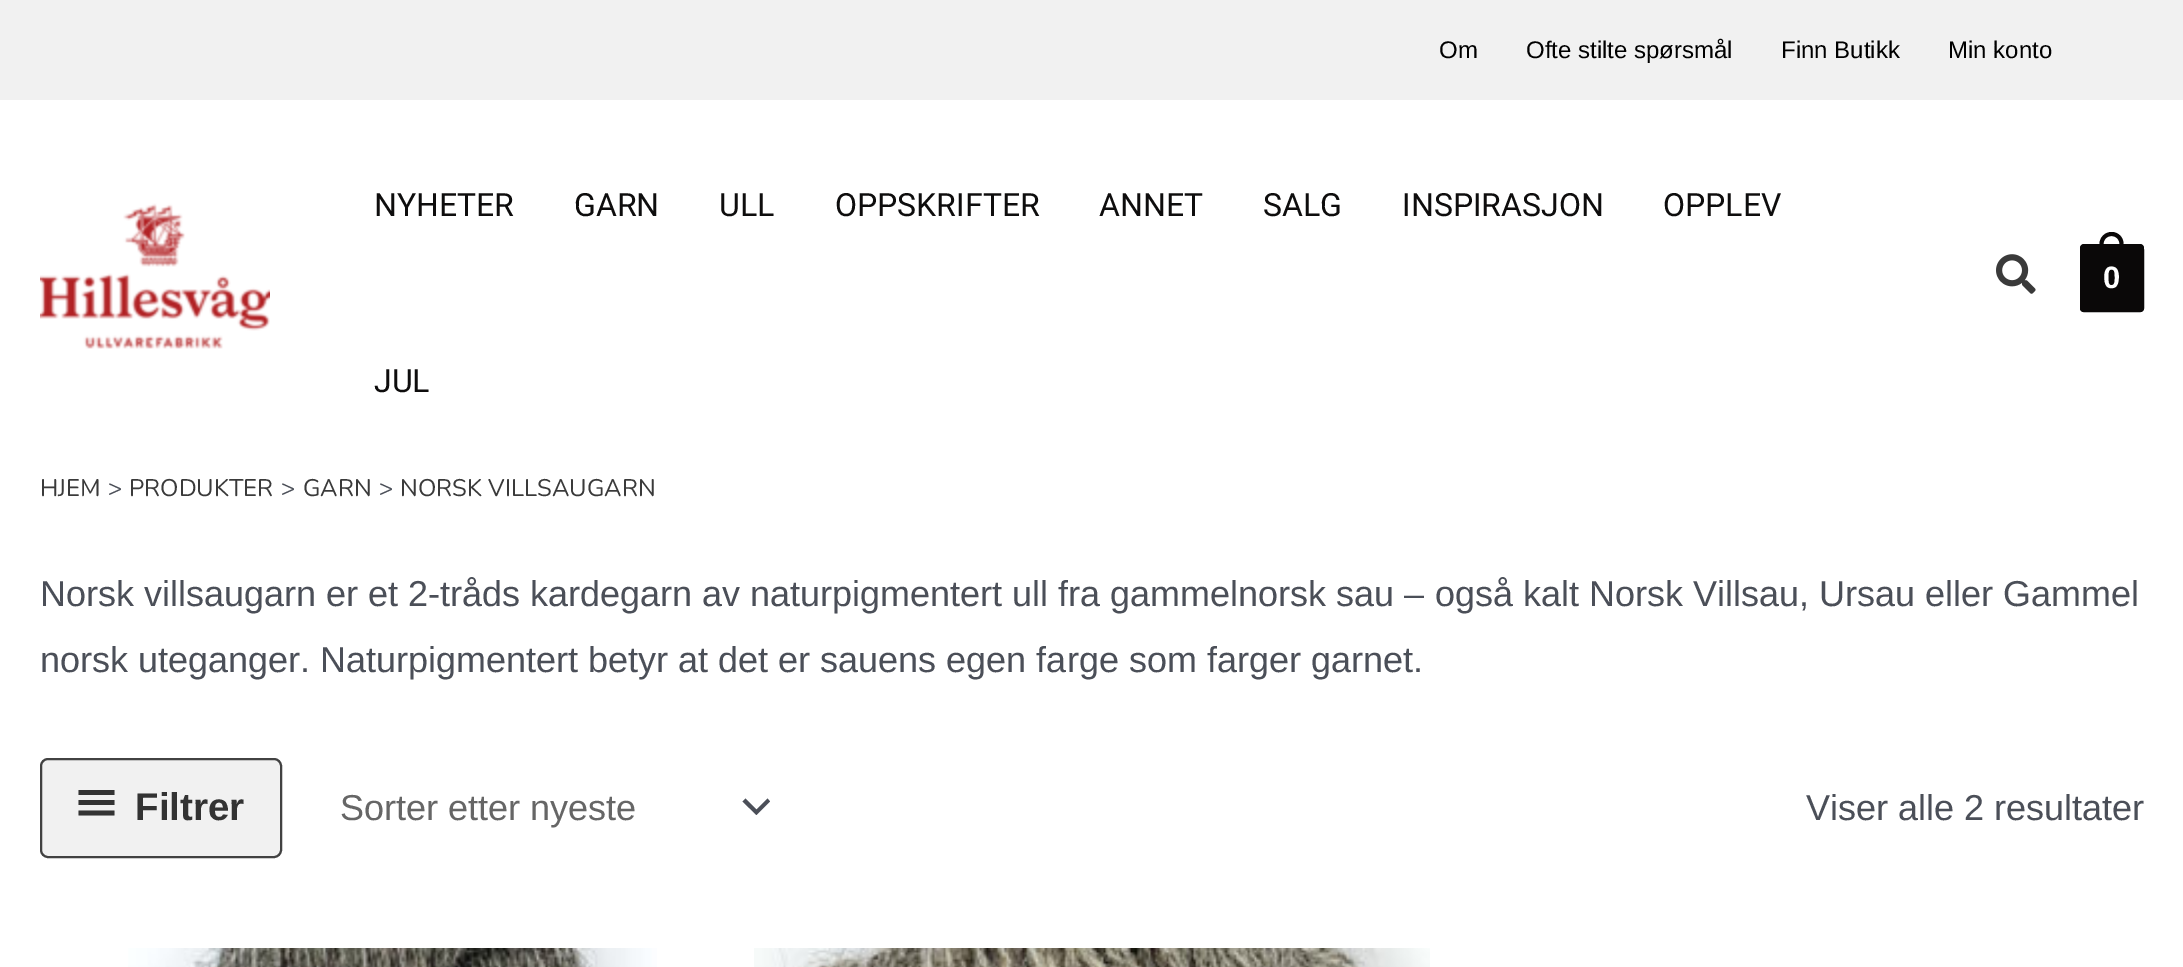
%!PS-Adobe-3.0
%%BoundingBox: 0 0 2183 967
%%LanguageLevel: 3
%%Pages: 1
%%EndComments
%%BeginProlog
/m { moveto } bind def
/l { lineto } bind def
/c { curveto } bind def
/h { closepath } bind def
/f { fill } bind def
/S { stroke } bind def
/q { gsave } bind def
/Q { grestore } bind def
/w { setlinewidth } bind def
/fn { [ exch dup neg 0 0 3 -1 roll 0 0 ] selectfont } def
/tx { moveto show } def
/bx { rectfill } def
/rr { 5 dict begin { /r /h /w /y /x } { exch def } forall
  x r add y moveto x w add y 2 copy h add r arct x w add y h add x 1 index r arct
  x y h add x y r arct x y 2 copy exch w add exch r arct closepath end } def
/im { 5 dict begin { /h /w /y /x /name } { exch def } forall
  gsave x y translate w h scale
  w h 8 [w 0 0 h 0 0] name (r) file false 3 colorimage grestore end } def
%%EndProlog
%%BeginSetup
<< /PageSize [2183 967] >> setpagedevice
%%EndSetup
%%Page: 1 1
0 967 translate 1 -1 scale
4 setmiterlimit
1 setgray
0 0 2183 967 bx
0.945 setgray
0 0 2183 100 bx
/LiberationSans-Regular 24 fn
0 setgray
(Om) 1439 58 tx
(Ofte stilte spørsmål) 1526 58 tx
(Finn Butikk) 1781 58 tx
(Min konto) 1948 58 tx
(image0.raw) 40 203 230 146 im
/Roboto-Regular 32 fn
0.055 0.051 0.051 setrgbcolor
(NYHETER) 374 216 tx
(GARN) 574 216 tx
(ULL) 719 216 tx
(OPPSKRIFTER) 835 216 tx
(ANNET) 1099 216 tx
(SALG) 1263 216 tx
(INSPIRASJON) 1402 216 tx
(OPPLEV) 1663 216 tx
(JUL) 374 392 tx
(image1.raw) 1996 254 40 40 im
0.039 0.031 0.031 setrgbcolor
2080 244 64 68 4 rr f
2082 248 60 62 2 rr q f Q
4 w
S
2111.5 232 m 2118.5 232 2123.5 237.5 2123.5 244 c 2123.5 256 l 2099.5 256 l 2099.5 244 l 2099.5 237.5 2105 232 2111.5 232 c h 2111.5 236 m 2116 236 2119.5 239.5 2119.5 244 c 2119.5 256 l 2103.5 256 l 2103.5 244 l 2103.5 239.5 2107 236 2111.5 236 c h eofill
/LiberationSans-Bold 31 fn
1 setgray
(0) 2103 288 tx
/Nunito-ExtraLight 24 fn
0.227 setgray
(HJEM) 40 496 tx
0.294 0.31 0.345 setrgbcolor
(>) 108 496 tx
0.227 setgray
(PRODUKTER) 129 496 tx
0.294 0.31 0.345 setrgbcolor
(>) 281 496 tx
0.227 setgray
(GARN) 303 496 tx
0.294 0.31 0.345 setrgbcolor
(>) 379 496 tx
0.227 setgray
(NORSK VILLSAUGARN) 400 496 tx
/LiberationSans-Regular 36 fn
0.294 0.31 0.345 setrgbcolor
(Norsk villsaugarn er et 2-tråds kardegarn av naturpigmentert ull fra gammelnorsk sau – også kalt Norsk Villsau, Ursau eller Gammel) 40 606 tx
(norsk uteganger. Naturpigmentert betyr at det er sauens egen farge som farger garnet.) 40 672 tx
0.945 setgray
41 759 240 98 7 rr q f Q
0.259 setgray
2 w
S
0.2 setgray
114.5 790 m 78.5 790 l 78.5 795 l 114.5 795 l h 78.5 800 m 114.5 800 l 114.5 805 l 78.5 805 l h 114.5 810.5 m 78.5 810.5 l 78.5 815.5 l 114.5 815.5 l h f
/LiberationSans-Bold 38.5 fn
(Filtrer) 135 820 tx
0.294 0.31 0.345 setrgbcolor
742.5 801.5 m 756.5 815 l 770 801.5 l 767.5 798.5 l 756.5 809.5 l 745.5 798.5 l h f
/LiberationSans-Regular 36 fn
0.4 setgray
(Sorter etter nyeste) 340 820 tx
0.294 0.31 0.345 setrgbcolor
(Viser alle 2 resultater) 1806 820 tx
(image2.raw) 128 948 529 19 im
(image3.raw) 754 948 676 19 im
showpage
%%EOF
